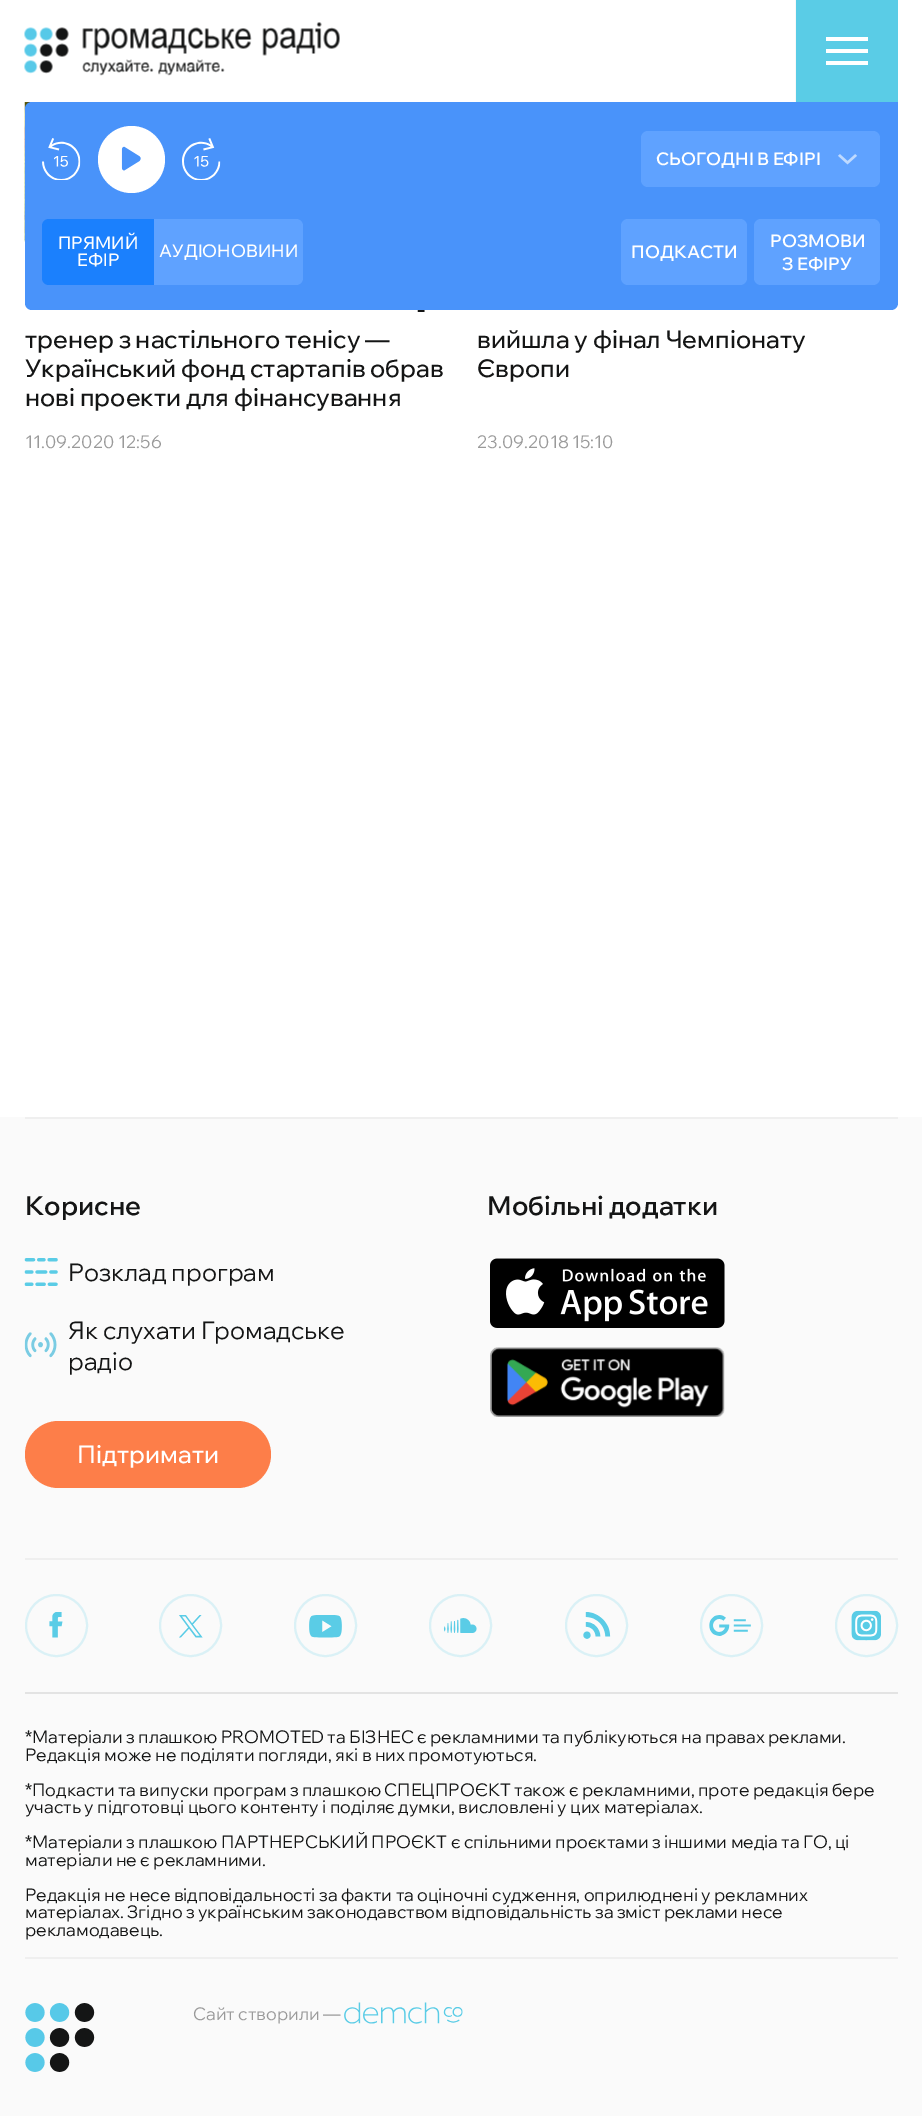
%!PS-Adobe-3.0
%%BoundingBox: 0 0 922 2116
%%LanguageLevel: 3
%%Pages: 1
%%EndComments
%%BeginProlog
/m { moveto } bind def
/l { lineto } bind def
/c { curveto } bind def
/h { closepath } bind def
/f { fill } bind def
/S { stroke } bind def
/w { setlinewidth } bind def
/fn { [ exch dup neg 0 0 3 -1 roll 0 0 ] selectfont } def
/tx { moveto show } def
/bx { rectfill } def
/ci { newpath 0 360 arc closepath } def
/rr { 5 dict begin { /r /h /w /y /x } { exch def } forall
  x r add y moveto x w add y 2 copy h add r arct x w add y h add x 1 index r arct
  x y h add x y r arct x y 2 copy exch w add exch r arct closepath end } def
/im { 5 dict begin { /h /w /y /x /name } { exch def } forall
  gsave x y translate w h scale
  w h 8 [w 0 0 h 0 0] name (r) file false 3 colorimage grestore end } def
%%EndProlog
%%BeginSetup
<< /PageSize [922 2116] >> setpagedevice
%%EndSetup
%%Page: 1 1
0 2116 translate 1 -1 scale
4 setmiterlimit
1 setgray
0 0 922 2116 bx
0.973 setgray
795 0 1 102 bx
(image0.raw) 24 22 316 54 im
0.353 0.8 0.902 setrgbcolor
796 0 102 102 bx
1 setgray
826 37 42 4 bx
826 49 42 4 bx
826 61 42 4 bx
(image5.raw) 24 102 8 140 im
0.286 0.576 0.98 setrgbcolor
32 102 m 898 102 l 898 303 l 898 307 895 310 891 310 c 32 310 l 28 310 25 307 25 303 c 25 109 l 25 105 28 102 32 102 c h f
(image1.raw) 42 138 39 42 im
1 setgray
131.5 159.5 33.5 ci f
(image2.raw) 121 146 20 25 im
(image3.raw) 182 138 39 42 im
0.373 0.635 1 setrgbcolor
641 131 239 56 7 rr f
/WixMadeforDisplay-SemiBold 17.5 fn
1 setgray
(СЬОГОДНІ В ЕФІРІ) 656 165 tx
(image4.raw) 838 154 19 11 im
0.106 0.502 0.992 setrgbcolor
49 219 m 154 219 l 154 285 l 49 285 l 45 285 42 282 42 278 c 42 226 l 42 222 45 219 49 219 c h f
/WixMadeforDisplay-Medium 17.5 fn
1 setgray
(ПРЯМИЙ) 58 249 tx
(ЕФIР) 77 266 tx
0.373 0.635 1 setrgbcolor
154 219 m 296 219 l 300 219 303 222 303 226 c 303 278 l 303 282 300 285 296 285 c 154 285 l h f
1 setgray
(АУДІОНОВИНИ) 159 257 tx
0.373 0.635 1 setrgbcolor
621 219 126 66 7 rr f
/WixMadeforDisplay-SemiBold 17.5 fn
1 setgray
(ПОДКАСТИ) 631 258 tx
0.373 0.635 1 setrgbcolor
754 219 126 66 7 rr f
1 setgray
(РОЗМОВИ) 770 247 tx
(З ЕФІРУ) 782 270 tx
/WixMadeforDisplay-Medium 24.5 fn
0.078 0.082 0.082 setrgbcolor
(-) 417 318 tx
(тренер з настільного тенісу —) 25 348 tx
(Український фонд стартапів обрав) 25 377 tx
(нові проекти для фінансування) 25 406 tx
/WixMadeforDisplay-Regular 17.5 fn
0.604 setgray
(11.09.2020 12:56) 25 448 tx
/WixMadeforDisplay-Medium 24.5 fn
0.078 0.082 0.082 setrgbcolor
(вийшла у фінал Чемпіонату) 477 348 tx
(Європи) 477 377 tx
/WixMadeforDisplay-Regular 17.5 fn
0.604 setgray
(23.09.2018 15:10) 477 448 tx
0.98 setgray
0 1117 922 999 bx
0.937 setgray
25 1117 873 2 bx
/WixMadeforDisplay-SemiBold 26.25 fn
0.078 0.082 0.082 setrgbcolor
(Корисне) 25 1215 tx
(image6.raw) 24 1258 34 28 im
/WixMadeforDisplay-Regular 24.5 fn
(Розклад програм) 68 1281 tx
(image7.raw) 24 1332 33 26 im
(Як слухати Громадське) 68 1339 tx
(радіо) 68 1370 tx
0.992 0.494 0.286 setrgbcolor
25 1421 246 67 33.5 rr f
/WixMadeforDisplay-Medium 24.5 fn
1 setgray
(Підтримати) 77 1463 tx
/WixMadeforDisplay-SemiBold 26.25 fn
0.078 0.082 0.082 setrgbcolor
(Мобільні додатки) 487 1215 tx
(image8.raw) 490 1258 235 70 im
(image9.raw) 490 1347 235 70 im
0.937 setgray
25 1558 873 2 bx
0.855 0.945 0.965 setrgbcolor
2 w
56.5 1625.5 30.5 ci S
(image10.raw) 49 1612 14 26 im
190.5 1625.5 30.5 ci S
(image11.raw) 179 1615 24 23 im
325.5 1625.5 30.5 ci S
(image12.raw) 309 1615 33 23 im
460.5 1625.5 30.5 ci S
(image13.raw) 443 1618 34 15 im
596.5 1625.5 30.5 ci S
(image14.raw) 583 1612 28 27 im
731.5 1625.5 30.5 ci S
(image15.raw) 709 1615 42 21 im
866.5 1625.5 30.5 ci S
(image16.raw) 851 1610 30 31 im
0.89 setgray
25 1692 873 2 bx
/WixMadeforDisplay-Regular 17.5 fn
0.078 0.082 0.082 setrgbcolor
(*Матеріали з плашкою PROMOTED та БІЗНЕС є рекламними та публікуються на правах реклами.) 25 1743 tx
(Редакція може не поділяти погляди, які в них промотуються.) 25 1761 tx
(*Подкасти та випуски програм з плашкою СПЕЦПРОЄКТ також є рекламними, проте редакція бере) 25 1796 tx
(участь у підготовці цього контенту і поділяє думки, висловлені у цих матеріалах.) 25 1813 tx
(*Матеріали з плашкою ПАРТНЕРСЬКИЙ ПРОЄКТ є спільними проєктами з іншими медіа та ГО, ці) 25 1848 tx
(матеріали не є рекламними.) 25 1866 tx
(Редакція не несе відповідальності за факти та оціночні судження, оприлюднені у рекламних) 25 1901 tx
(матеріалах. Згідно з українським законодавством відповідальність за зміст реклами несе) 25 1918 tx
(рекламодавець.) 25 1936 tx
0.937 setgray
25 1957 873 2 bx
(image17.raw) 25 2003 70 69 im
0.604 setgray
(Сайт створили —) 193 2020 tx
(image18.raw) 344 2002 119 22 im
showpage
%%EOF
